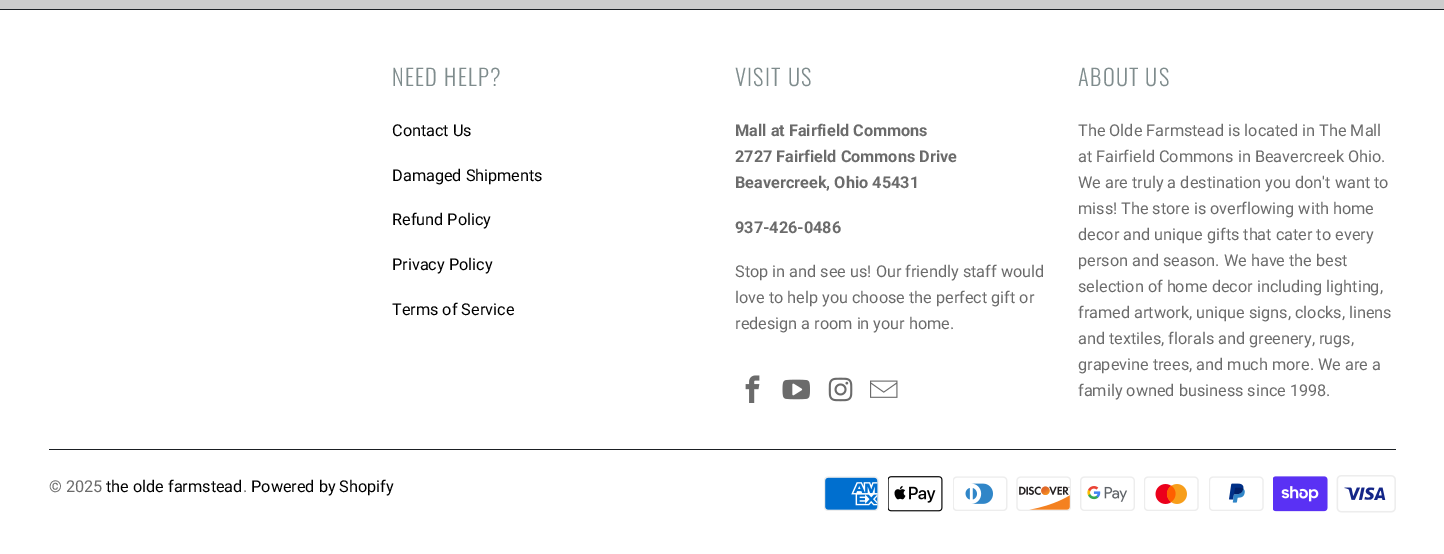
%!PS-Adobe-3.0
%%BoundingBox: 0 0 1444 554
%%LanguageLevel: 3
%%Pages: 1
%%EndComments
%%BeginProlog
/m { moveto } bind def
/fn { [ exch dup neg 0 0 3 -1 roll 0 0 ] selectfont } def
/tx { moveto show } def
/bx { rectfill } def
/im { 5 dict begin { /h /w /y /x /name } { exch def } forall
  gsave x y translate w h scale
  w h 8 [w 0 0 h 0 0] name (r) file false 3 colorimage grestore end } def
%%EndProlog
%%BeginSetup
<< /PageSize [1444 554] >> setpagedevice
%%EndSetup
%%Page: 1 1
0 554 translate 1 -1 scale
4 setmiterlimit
1 setgray
0 0 1444 554 bx
0.8 setgray
0 0 1444 9 bx
0.106 0.122 0.137 setrgbcolor
0 9 1444 1 bx
/Oswald-Light 22.5 fn
0.498 0.549 0.553 setrgbcolor
392 86 m 1.25 0 (NEED HELP?) ashow
/Roboto-Regular 16.25 fn
0 setgray
(Contact Us) 392 136 tx
(Damaged Shipments) 392 181 tx
(Refund Policy) 392 225 tx
(Privacy Policy) 392 270 tx
(Terms of Service) 392 315 tx
/Oswald-Light 22.5 fn
0.498 0.549 0.553 setrgbcolor
735 86 m 1.25 0 (VISIT US) ashow
/Roboto-Bold 16.25 fn
0.42 setgray
(Mall at Fairfield Commons) 735 136 tx
(2727 Fairfield Commons Drive) 735 162 tx
(Beavercreek, Ohio 45431) 735 188 tx
(937-426-0486) 735 233 tx
/Roboto-Regular 16.25 fn
(Stop in and see us! Our friendly staff would) 735 277 tx
(love to help you choose the perfect gift or) 735 303 tx
(redesign a room in your home.) 735 329 tx
(image0.raw) 745 375 15 28 im
(image1.raw) 782 379 28 21 im
(image2.raw) 828 377 25 25 im
(image3.raw) 870 380 28 18 im
/Oswald-Light 22.5 fn
0.498 0.549 0.553 setrgbcolor
1078 86 m 1.25 0 (ABOUT US) ashow
/Roboto-Regular 16.25 fn
0.42 setgray
(The Olde Farmstead is located in The Mall) 1078 136 tx
(at Fairfield Commons in Beavercreek Ohio.) 1078 162 tx
(We are truly a destination you don't want to) 1078 188 tx
(miss! The store is overflowing with home) 1078 214 tx
(decor and unique gifts that cater to every) 1078 240 tx
(person and season. We have the best) 1078 266 tx
(selection of home decor including lighting,) 1078 292 tx
(framed artwork, unique signs, clocks, linens) 1078 318 tx
(and textiles, florals and greenery, rugs,) 1078 344 tx
(grapevine trees, and much more. We are a) 1078 370 tx
(family owned business since 1998.) 1078 396 tx
0.106 0.122 0.137 setrgbcolor
49 449 1347 1 bx
0.42 setgray
(© 2025) 49 492 tx
0 setgray
(the olde farmstead) 106 492 tx
0.42 setgray
(.) 243 492 tx
0 setgray
(Powered by Shopify) 251 492 tx
(image4.raw) 824 476 55 35 im
(image5.raw) 888 476 55 36 im
(image6.raw) 953 476 55 35 im
(image7.raw) 1016 476 55 35 im
(image8.raw) 1080 476 55 35 im
(image9.raw) 1144 476 55 35 im
(image10.raw) 1209 476 55 35 im
(image11.raw) 1273 476 55 36 im
(image12.raw) 1336 475 60 38 im
showpage
%%EOF
